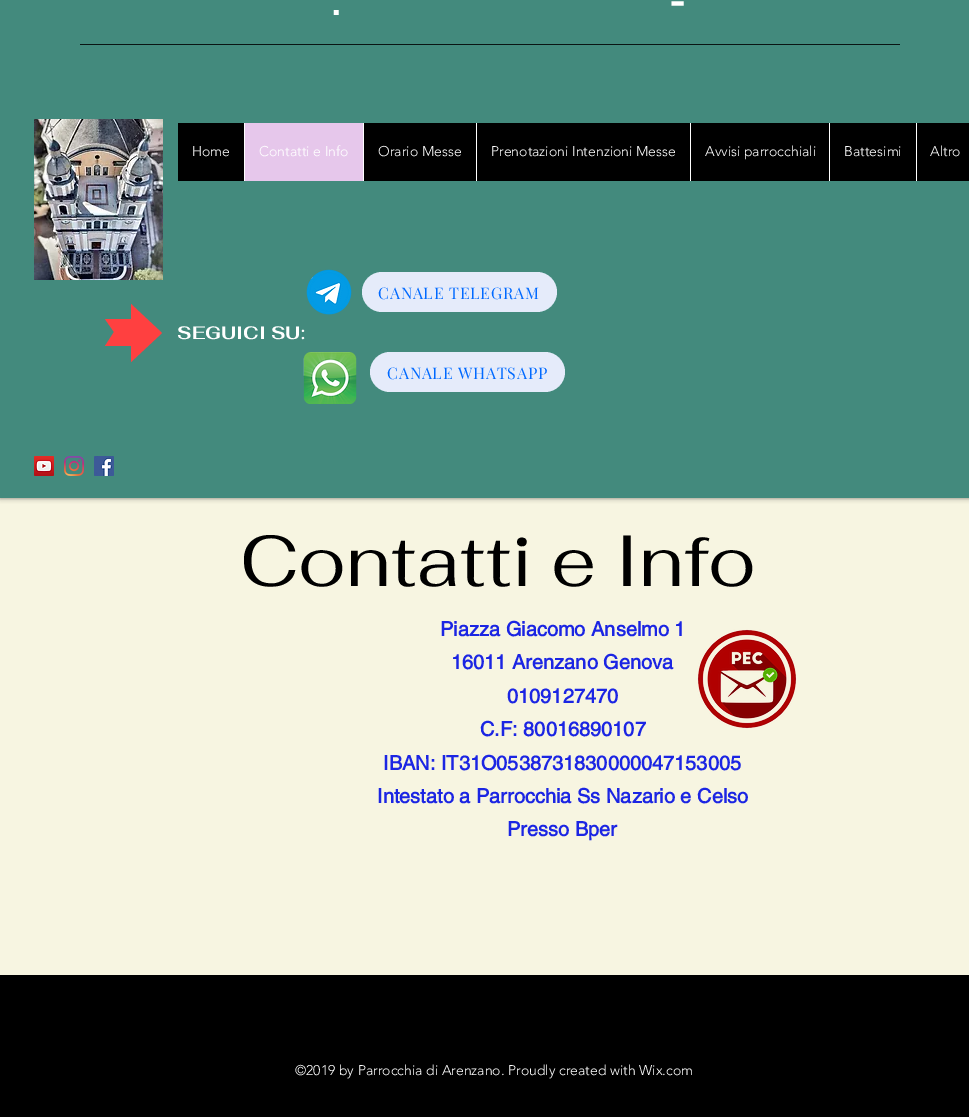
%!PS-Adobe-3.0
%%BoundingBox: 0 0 969 1117
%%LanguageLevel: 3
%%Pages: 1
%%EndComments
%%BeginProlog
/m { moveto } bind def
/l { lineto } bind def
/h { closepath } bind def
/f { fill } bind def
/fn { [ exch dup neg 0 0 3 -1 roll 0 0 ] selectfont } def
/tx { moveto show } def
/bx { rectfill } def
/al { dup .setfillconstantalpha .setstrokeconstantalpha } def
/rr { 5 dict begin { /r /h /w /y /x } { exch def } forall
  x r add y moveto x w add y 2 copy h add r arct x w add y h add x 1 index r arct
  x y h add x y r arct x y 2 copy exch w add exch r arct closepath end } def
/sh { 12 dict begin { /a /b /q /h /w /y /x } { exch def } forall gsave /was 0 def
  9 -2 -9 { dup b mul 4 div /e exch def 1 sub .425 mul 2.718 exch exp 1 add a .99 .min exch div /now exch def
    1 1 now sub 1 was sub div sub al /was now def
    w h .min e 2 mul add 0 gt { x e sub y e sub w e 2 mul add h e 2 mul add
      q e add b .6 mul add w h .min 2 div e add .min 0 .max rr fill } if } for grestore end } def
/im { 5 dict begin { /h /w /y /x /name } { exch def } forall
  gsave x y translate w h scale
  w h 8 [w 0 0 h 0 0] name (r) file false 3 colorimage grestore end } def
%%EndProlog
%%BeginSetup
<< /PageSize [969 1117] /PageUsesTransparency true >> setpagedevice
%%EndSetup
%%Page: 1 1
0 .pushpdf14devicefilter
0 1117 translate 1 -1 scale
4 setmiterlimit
0.969 0.961 0.882 setrgbcolor
0 0 969 1117 bx
0 setgray
0 -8 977 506 0 2.5 0.5 sh
0.263 0.541 0.49 setrgbcolor
0 0 969 498 bx
/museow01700-SemiBold 40 fn
1 setgray
(-) 669 15 tx
(.) 331 15 tx
0.039 0.082 0.075 setrgbcolor
80 44 820 1 bx
(image0.raw) 34 119 129 161 im
0 setgray
178 123 791 58 bx
/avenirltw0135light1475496-Light 14 fn
1 setgray
(Home) 192 156 tx
0.902 0.78 0.922 setrgbcolor
245 123 118 58 bx
1 setgray
244 123 1 58 bx
(Contatti e Info) 259 156 tx
363 123 1 58 bx
(Orario Messe) 378 156 tx
476 123 1 58 bx
(Prenotazioni Intenzioni Messe) 491 156 tx
690 123 1 58 bx
(Avvisi parrocchiali) 705 156 tx
829 123 1 58 bx
(Battesimi) 844 156 tx
916 123 1 58 bx
(Altro) 930 156 tx
(image1.raw) 306 269 46 46 im
0.898 0.922 0.98 setrgbcolor
362 272 195 40 20 rr f
/PlayfairDisplay-Regular 16 fn
0 0.412 1 setrgbcolor
378 299 m 0.75 0 (CANALE TELEGRAM) ashow
1 0.251 0.251 setrgbcolor
162 333 m 131 304 l 131 319 l 105 319 l 114 332 l 105 346 l 131 346 l 131 362 l h f
/Fahkwang-Bold 18 fn
1 setgray
(SEGUICI SU:) 177 339 tx
(image2.raw) 303 352 54 52 im
0.898 0.922 0.98 setrgbcolor
370 352 195 40 20 rr f
/PlayfairDisplay-Regular 16 fn
0 0.412 1 setrgbcolor
387 379 m 0.75 0 (CANALE WHATSAPP) ashow
(image3.raw) 34 456 20 20 im
(image4.raw) 64 456 20 20 im
(image5.raw) 94 456 20 20 im
/Fahkwang-Regular 72 fn
0 setgray
(Contatti e Info) 240 586 tx
/helvetica-Bold 20 fn
0.106 0.145 0.89 setrgbcolor
(Piazza Giacomo Anselmo 1) 440 636 tx
(16011 Arenzano Genova) 451 669 tx
(0109127470) 507 703 tx
(C.F: 80016890107) 480 736 tx
(IBAN: IT31O0538731830000047153005) 383 770 tx
(Intestato a Parrocchia Ss Nazario e Celso) 377 803 tx
(Presso Bper) 507 836 tx
(image6.raw) 697 629 100 100 im
0 setgray
0 975 969 142 bx
/avenirltw0135light1475496-Light 14 fn
1 setgray
(©2019 by Parrocchia di Arenzano. Proudly created with Wix.com) 295 1075 tx
.poppdf14devicefilter showpage
%%EOF
